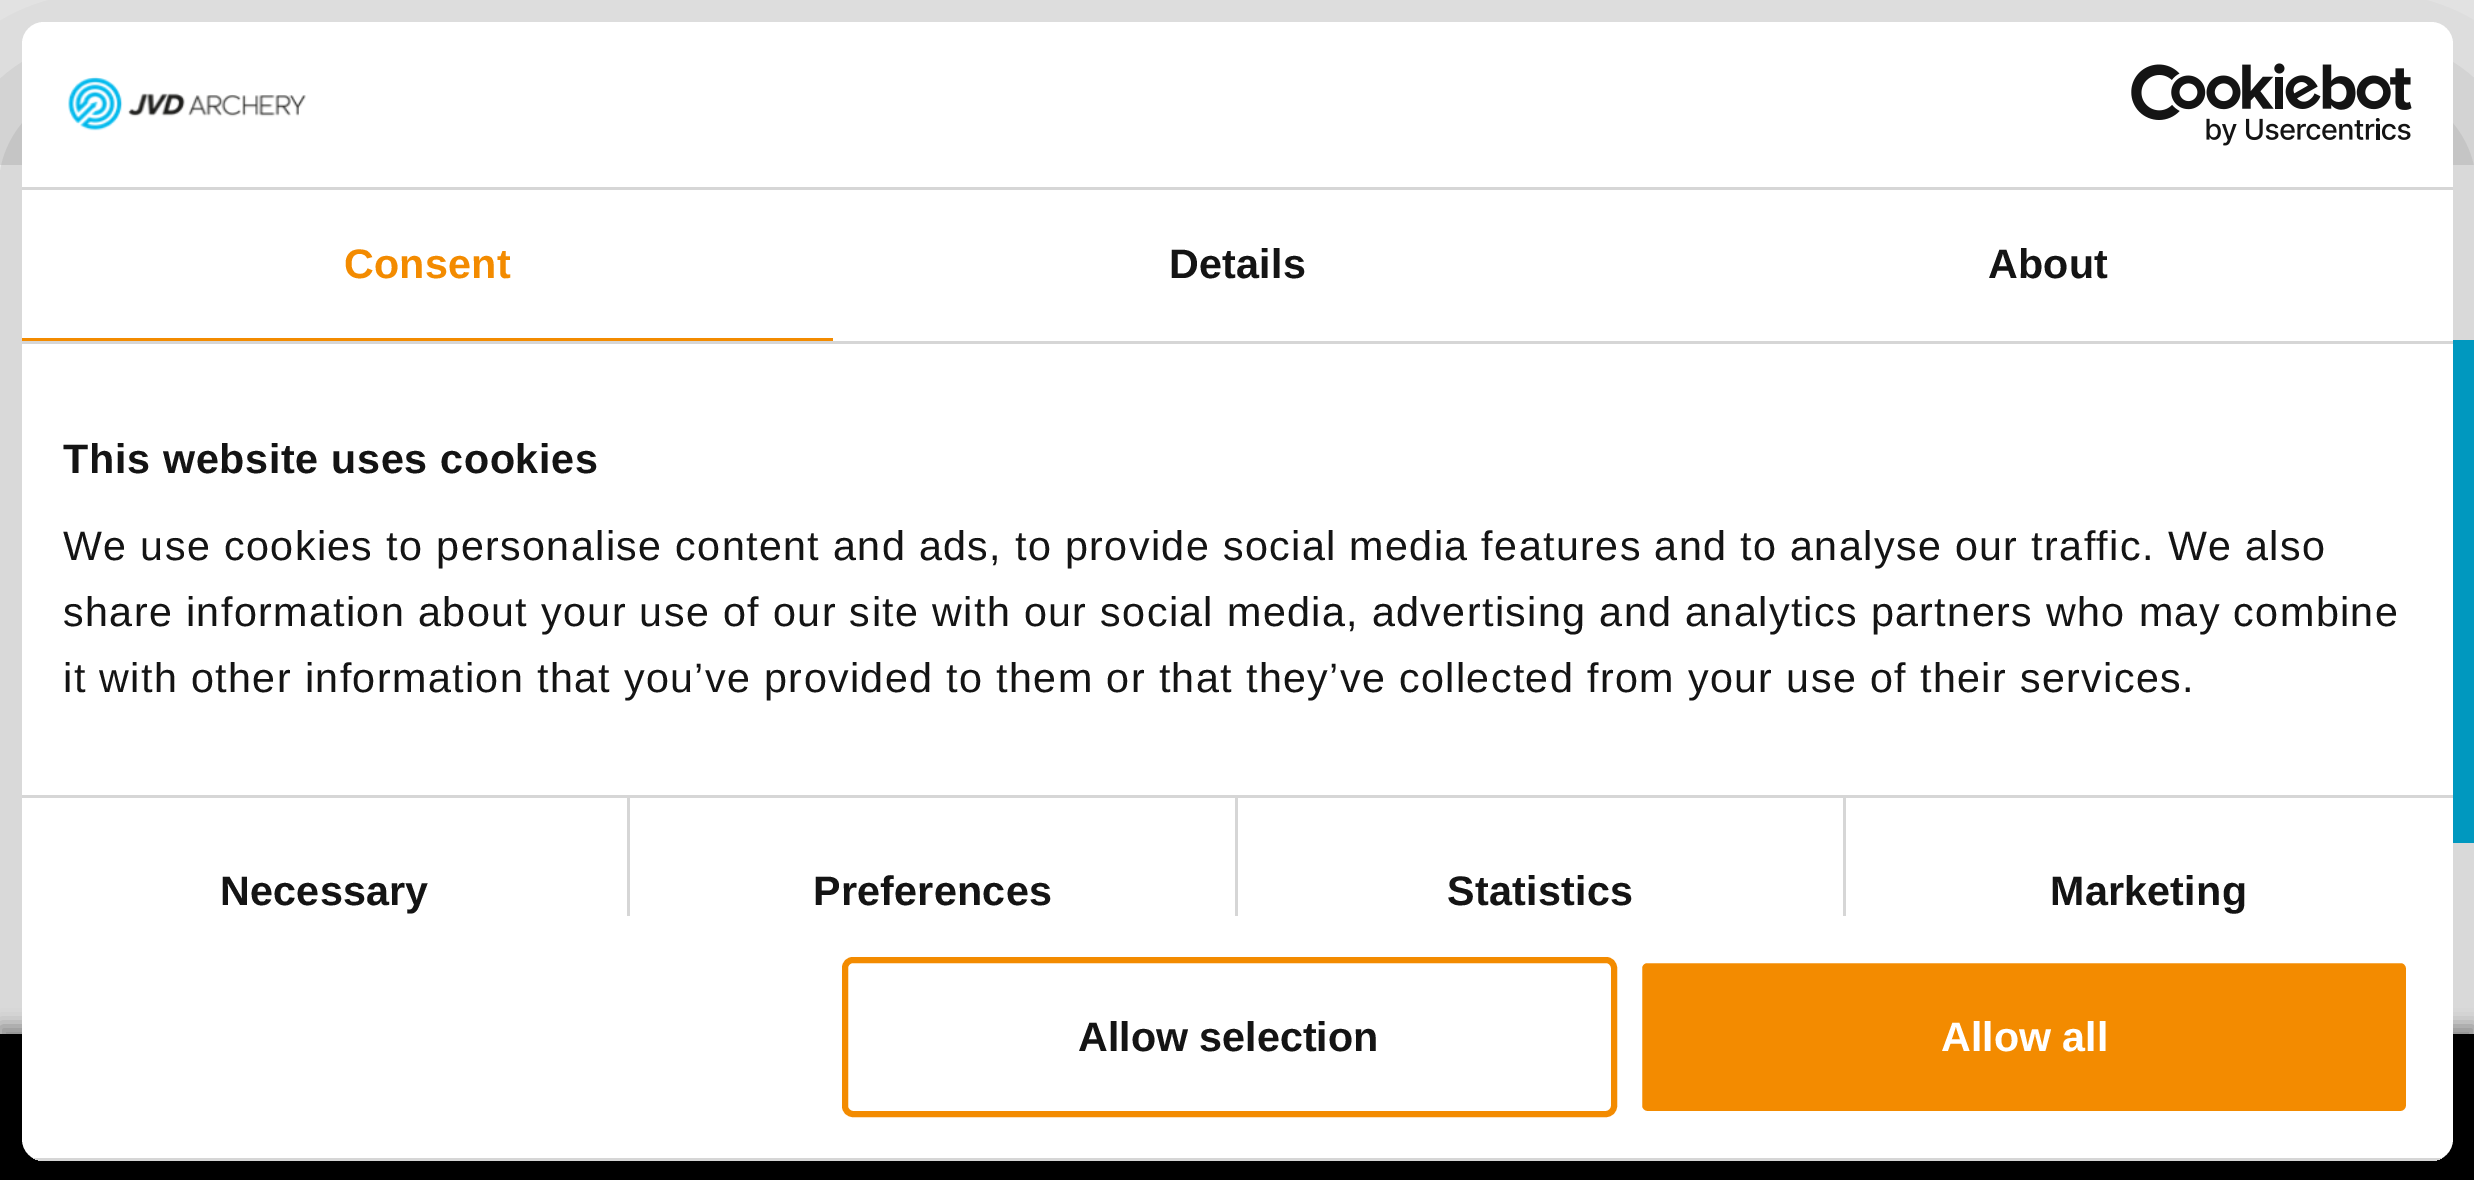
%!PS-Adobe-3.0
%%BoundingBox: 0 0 2474 1180
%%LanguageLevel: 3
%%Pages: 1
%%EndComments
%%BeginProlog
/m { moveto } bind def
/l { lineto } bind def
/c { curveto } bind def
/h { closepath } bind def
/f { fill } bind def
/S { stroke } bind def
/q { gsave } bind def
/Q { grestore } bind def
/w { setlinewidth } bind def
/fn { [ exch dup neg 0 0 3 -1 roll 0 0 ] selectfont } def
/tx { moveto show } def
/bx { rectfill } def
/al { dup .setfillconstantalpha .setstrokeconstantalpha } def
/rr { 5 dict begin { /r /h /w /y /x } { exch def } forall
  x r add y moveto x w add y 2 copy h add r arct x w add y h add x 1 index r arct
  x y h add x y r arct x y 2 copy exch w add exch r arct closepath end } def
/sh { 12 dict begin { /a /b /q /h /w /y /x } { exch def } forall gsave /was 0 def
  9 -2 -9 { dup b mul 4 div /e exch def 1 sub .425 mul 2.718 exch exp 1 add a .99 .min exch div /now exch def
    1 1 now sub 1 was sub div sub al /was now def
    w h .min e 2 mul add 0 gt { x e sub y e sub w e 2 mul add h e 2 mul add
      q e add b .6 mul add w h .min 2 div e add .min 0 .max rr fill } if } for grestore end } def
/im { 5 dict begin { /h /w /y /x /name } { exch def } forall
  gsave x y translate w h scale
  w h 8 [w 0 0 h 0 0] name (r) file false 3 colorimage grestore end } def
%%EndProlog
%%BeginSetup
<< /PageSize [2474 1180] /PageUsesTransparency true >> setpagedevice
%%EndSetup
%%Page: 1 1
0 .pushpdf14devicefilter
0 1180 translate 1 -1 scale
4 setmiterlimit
1 setgray
0 0 2474 1180 bx
0.906 setgray
0 0 2474 165 bx
0 0.698 0.882 setrgbcolor
2343 821 m 2343 362 l 2343 349 2353 340 2365 340 c 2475 340 l 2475 843 l 2365 843 l 2353 843 2343 833 2343 821 c h f
0 setgray
0 1026 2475 148 0 8 0.23 sh
0 1026 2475 148 0 8 0.16 sh
0 1034 2474 146 bx
22 110 2431 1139 22 93.5 0.3 sh
1 setgray
22 22 2431 1139 22 rr f
0.839 setgray
22 187 2431 3 bx
(image0.raw) 68 76 238 55 im
(image1.raw) 2131 63 281 83 im
22 341 2431 3 bx
0.953 0.545 0 setrgbcolor
22 338 811 3 bx
/LiberationSans-Bold 41.25 fn
344 278 m 0.25 0 (Consent) ashow
0.078 setgray
1169 278 m 0.25 0 (Details) ashow
1988 278 m 0.25 0 (About) ashow
0.839 setgray
22 795 2431 3 bx
0.078 setgray
63 473 m 0.7 0 (This website uses cookies) ashow
/LiberationSans-Regular 41.25 fn
63 560 m 1.38 0 (We use cookies to personalise content and ads, to provide social media features and to analyse our traffic. We also) ashow
63 626 m 1.38 0 (share information about your use of our site with our social media, advertising and analytics partners who may combine) ashow
63 692 m 1.38 0 (it with other information that you’ve provided to them or that they’ve collected from your use of their services.) ashow
0.839 setgray
627 798 3 118 bx
/LiberationSans-Bold 41.25 fn
0.078 setgray
220 905 m 0.25 0 (Necessary) ashow
0.839 setgray
1235 798 3 118 bx
0.078 setgray
813 905 m 0.25 0 (Preferences) ashow
0.839 setgray
1843 798 3 118 bx
0.078 setgray
1447 905 m 0.25 0 (Statistics) ashow
2050 905 m 0.25 0 (Marketing) ashow
q
22 22 2431 1139 22 rr clip newpath
0.839 setgray
33 1158 2409 3 bx
Q
0.953 0.545 0 setrgbcolor
6 w
845 960 769 154 8 rr S
0.078 setgray
(Allow selection) 1078 1051 tx
0.953 0.545 0 setrgbcolor
1639 960 770 154 8 rr q f Q
1 setgray
S
(Allow all) 1941 1051 tx
.poppdf14devicefilter showpage
%%EOF
